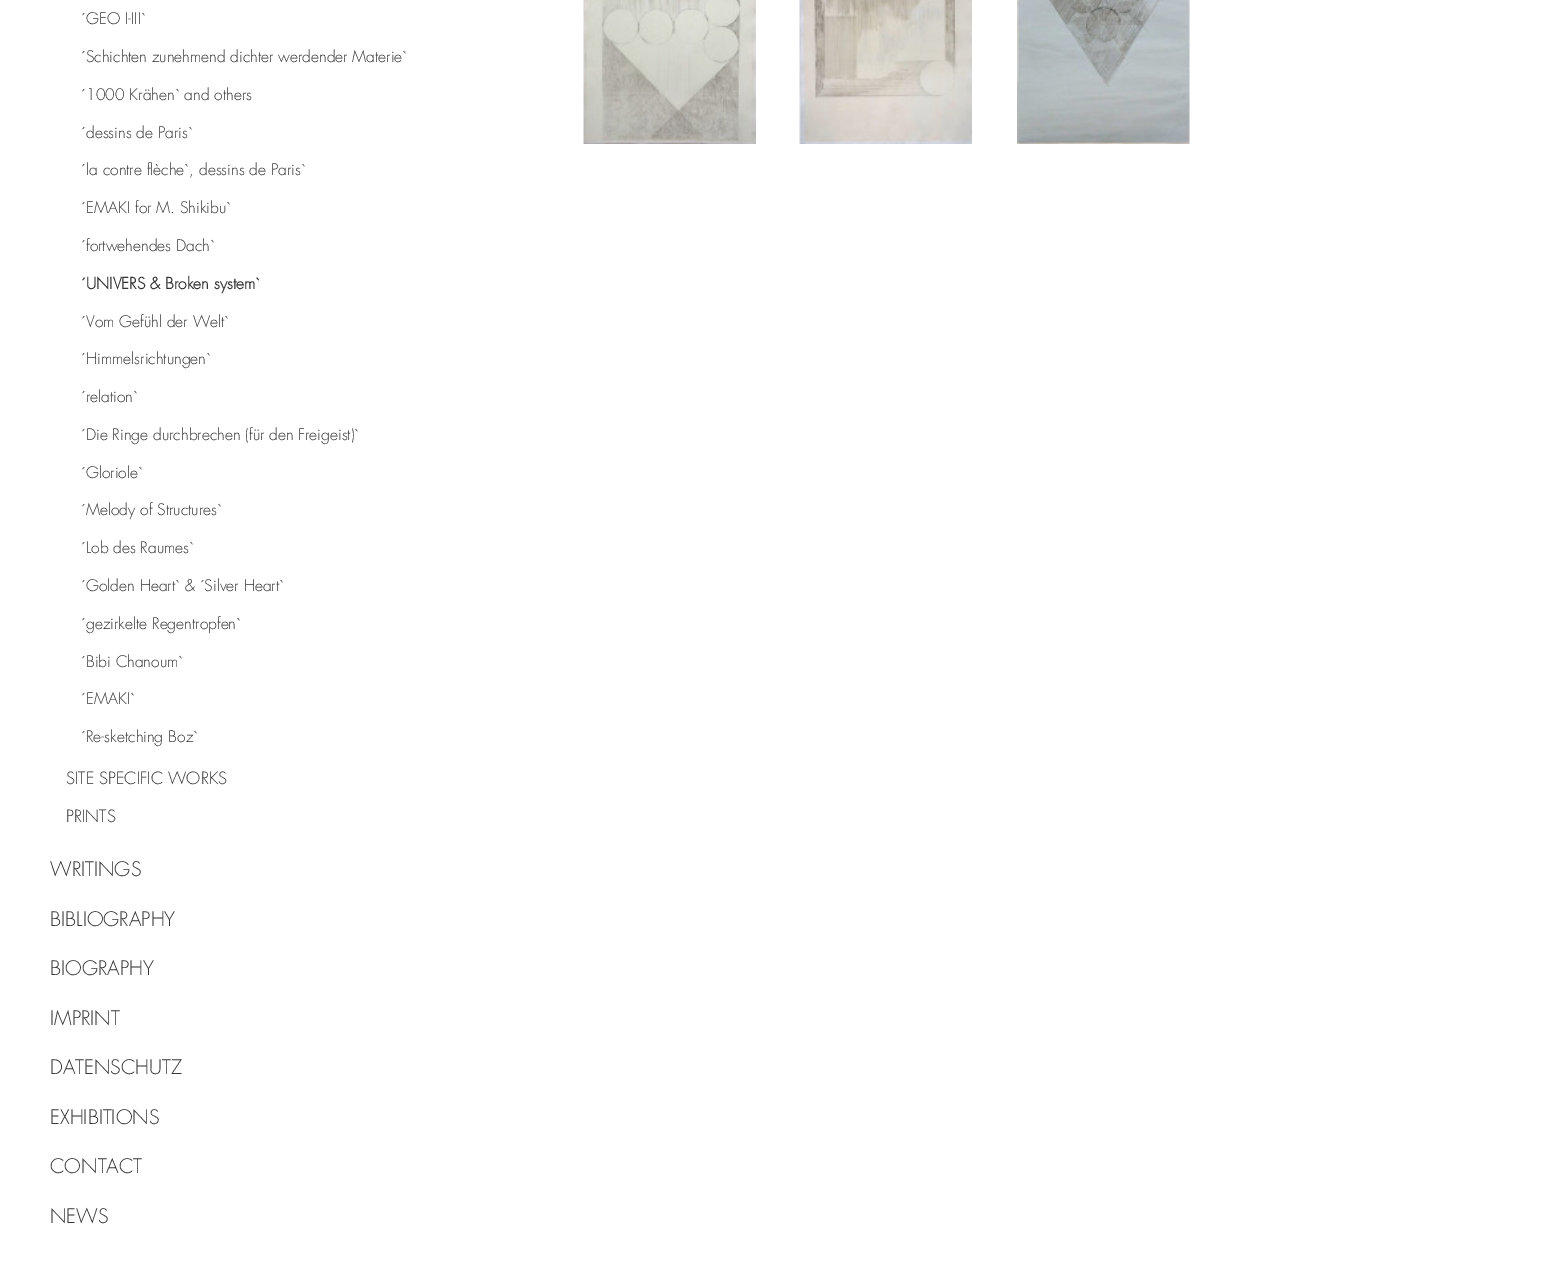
%!PS-Adobe-3.0
%%BoundingBox: 0 0 1554 1288
%%LanguageLevel: 3
%%Pages: 1
%%EndComments
%%BeginProlog
/fn { [ exch dup neg 0 0 3 -1 roll 0 0 ] selectfont } def
/tx { moveto show } def
/bx { rectfill } def
/im { 5 dict begin { /h /w /y /x /name } { exch def } forall
  gsave x y translate w h scale
  w h 8 [w 0 0 h 0 0] name (r) file false 3 colorimage grestore end } def
%%EndProlog
%%BeginSetup
<< /PageSize [1554 1288] >> setpagedevice
%%EndSetup
%%Page: 1 1
0 1288 translate 1 -1 scale
4 setmiterlimit
1 setgray
0 0 1554 1288 bx
/Futura-Light 15.6 fn
0.2 setgray
(´GEO I-III`) 81 24 tx
(´Schichten zunehmend dichter werdender Materie`) 81 62 tx
(´1000 Krähen` and others) 81 100 tx
(´dessins de Paris`) 81 138 tx
(´la contre flèche`, dessins de Paris`) 81 175 tx
(´EMAKI for M. Shikibu`) 81 213 tx
(´fortwehendes Dach`) 81 251 tx
/Futura-Bold 15.6 fn
(´UNIVERS & Broken system`) 81 289 tx
/Futura-Light 15.6 fn
(´Vom Gefühl der Welt`) 81 327 tx
(´Himmelsrichtungen`) 81 364 tx
(´relation`) 81 402 tx
(´Die Ringe durchbrechen \(für den Freigeist\)`) 81 440 tx
(´Gloriole`) 81 478 tx
(´Melody of Structures`) 81 515 tx
(´Lob des Raumes`) 81 553 tx
(´Golden Heart` & ´Silver Heart`) 81 591 tx
(´gezirkelte Regentropfen`) 81 629 tx
(´Bibi Chanoum`) 81 667 tx
(´EMAKI`) 81 704 tx
(´Re-sketching Boz`) 81 742 tx
/Futura-Light 16.5 fn
(SITE SPECIFIC WORKS) 66 784 tx
(PRINTS) 66 822 tx
/Futura-Light 19.5 fn
(WRITINGS) 50 876 tx
(BIBLIOGRAPHY) 50 926 tx
(BIOGRAPHY) 50 975 tx
(IMPRINT) 50 1025 tx
(DATENSCHUTZ) 50 1074 tx
(EXHIBITIONS) 50 1124 tx
(CONTACT) 50 1173 tx
(NEWS) 50 1223 tx
(image0.raw) 583 0 173 144 im
(image1.raw) 799 0 173 144 im
(image2.raw) 1017 0 173 144 im
showpage
%%EOF
